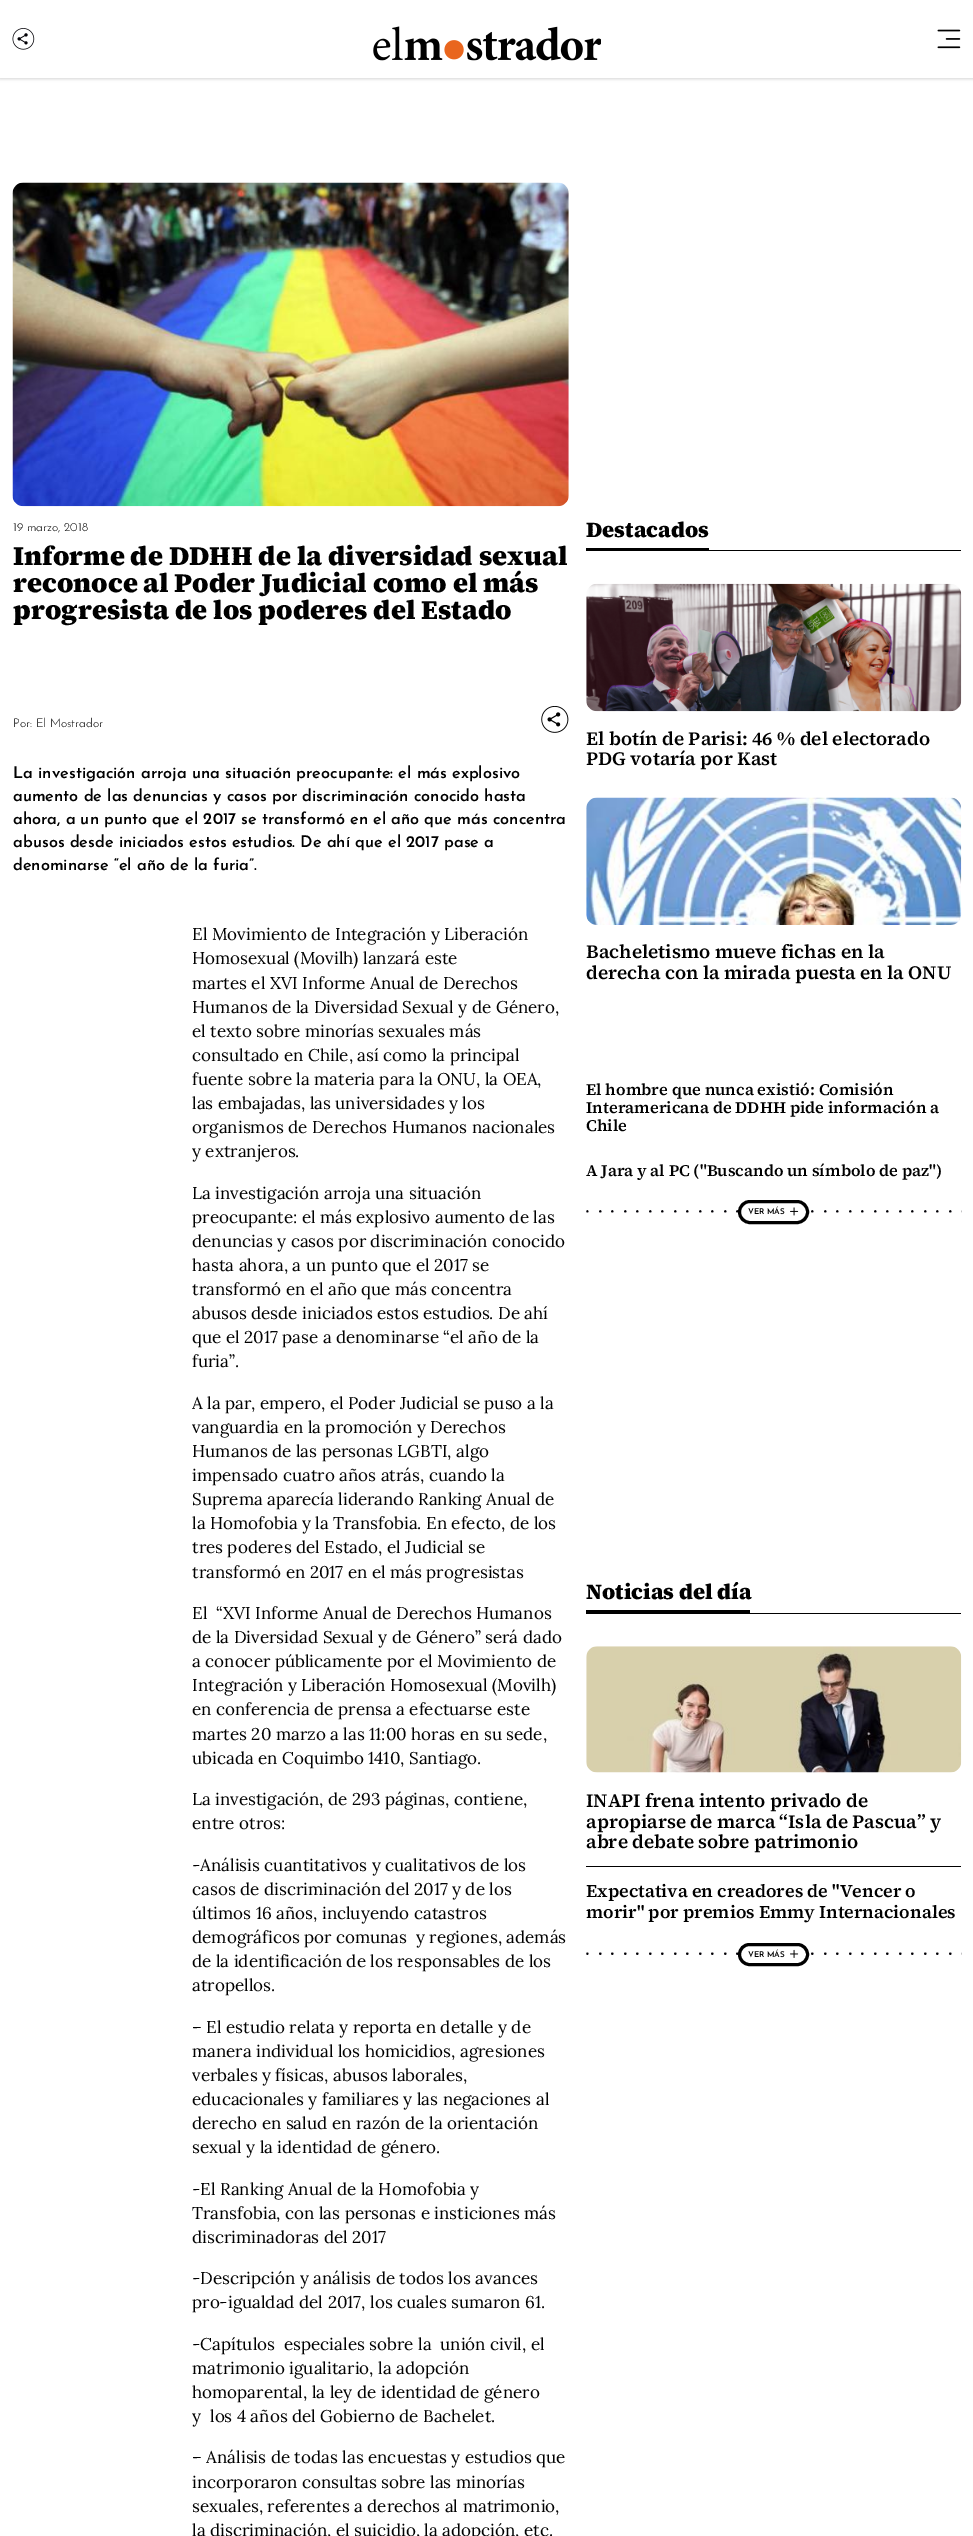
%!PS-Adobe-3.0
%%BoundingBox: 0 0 973 2536
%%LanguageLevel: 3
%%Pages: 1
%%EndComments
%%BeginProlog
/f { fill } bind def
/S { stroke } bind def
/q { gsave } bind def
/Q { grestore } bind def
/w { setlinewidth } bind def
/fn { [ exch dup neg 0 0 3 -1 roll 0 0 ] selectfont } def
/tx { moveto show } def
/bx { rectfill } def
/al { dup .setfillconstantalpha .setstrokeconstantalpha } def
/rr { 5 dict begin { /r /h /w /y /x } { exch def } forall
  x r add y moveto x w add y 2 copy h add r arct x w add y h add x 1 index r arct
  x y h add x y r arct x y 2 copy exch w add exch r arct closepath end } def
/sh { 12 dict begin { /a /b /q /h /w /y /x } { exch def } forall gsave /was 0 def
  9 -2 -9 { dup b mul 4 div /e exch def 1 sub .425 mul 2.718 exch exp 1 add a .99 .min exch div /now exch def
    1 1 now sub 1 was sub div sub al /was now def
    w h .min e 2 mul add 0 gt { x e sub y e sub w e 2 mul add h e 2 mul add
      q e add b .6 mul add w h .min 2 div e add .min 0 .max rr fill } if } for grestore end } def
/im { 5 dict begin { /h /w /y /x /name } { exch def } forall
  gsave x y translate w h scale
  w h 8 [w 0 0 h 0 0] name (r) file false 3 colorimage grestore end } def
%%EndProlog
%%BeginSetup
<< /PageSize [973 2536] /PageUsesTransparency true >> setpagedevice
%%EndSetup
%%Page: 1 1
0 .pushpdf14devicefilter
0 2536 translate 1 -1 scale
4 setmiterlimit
1 setgray
0 0 973 2536 bx
0 setgray
0 1 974 78 0 1.5 0.16 sh
1 setgray
0 0 973 78 bx
(image0.raw) 12 28 23 22 im
(image1.raw) 373 26 228 35 im
(image2.raw) 937 29 24 20 im
(image3.raw) 12 182 557 325 im
/JosefinSans-Light 12 fn
0 setgray
(19 marzo, 2018) 13 531 tx
/SourceSerif4-Black 27.1 fn
(Informe de DDHH de la diversidad sexual) 13 565 tx
(reconoce al Poder Judicial como el más) 13 592 tx
(progresista de los poderes del Estado) 13 619 tx
/JosefinSans-Light 12 fn
(Por: El Mostrador) 13 727 tx
(image4.raw) 541 706 28 27 im
/JosefinSans-SemiBold 16.25 fn
(La investigación arroja una situación preocupante: el más explosivo) 13 778 tx
(aumento de las denuncias y casos por discriminación conocido hasta) 13 801 tx
(ahora, a un punto que el 2017 se transformó en el año que más concentra) 13 824 tx
(abusos desde iniciados estos estudios. De ahí que el 2017 pase a) 13 847 tx
(denominarse “el año de la furia”.) 13 870 tx
/Lora-Regular 17 fn
(El Movimiento de Integración y Liberación) 192 940 tx
(Homosexual \(Movilh\) lanzará este) 192 964 tx
(martes el XVI Informe Anual de Derechos) 192 989 tx
(Humanos de la Diversidad Sexual y de Género,) 192 1013 tx
(el texto sobre minorías sexuales más) 192 1037 tx
(consultado en Chile, así como la principal) 192 1061 tx
(fuente sobre la materia para la ONU, la OEA,) 192 1085 tx
(las embajadas, las universidades y los) 192 1109 tx
(organismos de Derechos Humanos nacionales) 192 1133 tx
(y extranjeros.) 192 1157 tx
(La investigación arroja una situación) 192 1199 tx
(preocupante: el más explosivo aumento de las) 192 1223 tx
(denuncias y casos por discriminación conocido) 192 1247 tx
(hasta ahora, a un punto que el 2017 se) 192 1271 tx
(transformó en el año que más concentra) 192 1295 tx
(abusos desde iniciados estos estudios. De ahí) 192 1319 tx
(que el 2017 pase a denominarse “el año de la) 192 1343 tx
(furia”.) 192 1367 tx
(A la par, empero, el Poder Judicial se puso a la) 192 1409 tx
(vanguardia en la promoción y Derechos) 192 1433 tx
(Humanos de las personas LGBTI, algo) 192 1457 tx
(impensado cuatro años atrás, cuando la) 192 1481 tx
(Suprema aparecía liderando Ranking Anual de) 192 1505 tx
(la Homofobia y la Transfobia. En efecto, de los) 192 1529 tx
(tres poderes del Estado, el Judicial se) 192 1553 tx
(transformó en 2017 en el más progresistas) 192 1578 tx
(El  “XVI Informe Anual de Derechos Humanos) 192 1619 tx
(de la Diversidad Sexual y de Género” será dado) 192 1643 tx
(a conocer públicamente por el Movimiento de) 192 1667 tx
(Integración y Liberación Homosexual \(Movilh\)) 192 1691 tx
(en conferencia de prensa a efectuarse este) 192 1715 tx
(martes 20 marzo a las 11:00 horas en su sede,) 192 1740 tx
(ubicada en Coquimbo 1410, Santiago.) 192 1764 tx
(La investigación, de 293 páginas, contiene,) 192 1805 tx
(entre otros:) 192 1829 tx
(-Análisis cuantitativos y cualitativos de los) 192 1871 tx
(casos de discriminación del 2017 y de los) 192 1895 tx
(últimos 16 años, incluyendo catastros) 192 1919 tx
(demográficos por comunas  y regiones, además) 192 1943 tx
(de la identificación de los responsables de los) 192 1967 tx
(atropellos.) 192 1991 tx
(– El estudio relata y reporta en detalle y de) 192 2033 tx
(manera individual los homicidios, agresiones) 192 2057 tx
(verbales y físicas, abusos laborales,) 192 2081 tx
(educacionales y familiares y las negaciones al) 192 2105 tx
(derecho en salud en razón de la orientación) 192 2129 tx
(sexual y la identidad de género.) 192 2153 tx
(-El Ranking Anual de la Homofobia y) 192 2195 tx
(Transfobia, con las personas e insticiones más) 192 2219 tx
(discriminadoras del 2017) 192 2243 tx
(-Descripción y análisis de todos los avances) 192 2284 tx
(pro-igualdad del 2017, los cuales sumaron 61.) 192 2308 tx
(-Capítulos  especiales sobre la  unión civil, el) 192 2350 tx
(matrimonio igualitario, la adopción) 192 2374 tx
(homoparental, la ley de identidad de género) 192 2398 tx
(y  los 4 años del Gobierno de Bachelet.) 192 2422 tx
(– Análisis de todas las encuestas y estudios que) 192 2463 tx
(incorporaron consultas sobre las minorías) 192 2488 tx
(sexuales, referentes a derechos al matrimonio,) 192 2512 tx
(la discriminación, el suicidio, la adopción, etc.) 192 2536 tx
709 550 252 1 bx
586 548 123 3 bx
/SourceSerif4-Black 21.75 fn
(Destacados) 586 537 tx
(image5.raw) 586 583 376 129 im
/SourceSerif4-SemiBold 19 fn
(El botín de Parisi: 46 % del electorado) 586 745 tx
(PDG votaría por Kast) 586 765 tx
(image6.raw) 586 797 376 128 im
(Bacheletismo mueve fichas en la) 586 958 tx
(derecha con la mirada puesta en la ONU) 586 979 tx
/SourceSerif4-SemiBold 16.25 fn
(El hombre que nunca existió: Comisión) 586 1095 tx
(Interamericana de DDHH pide información a) 586 1113 tx
(Chile) 586 1131 tx
(A Jara y al PC \("Buscando un símbolo de paz"\)) 586 1176 tx
(image8.raw) 586 1210 376 3 im
1 setgray
739.5 1201.5 68 21 10.5 rr q f Q
0 setgray
3 w
S
/JosefinSans-SemiBold 8 fn
(VER MÁS) 748 1214 tx
(image7.raw) 790 1207 9 9 im
586 1613 375 1 bx
586 1610 164 3 bx
/SourceSerif4-Black 21.75 fn
(Noticias del día) 586 1599 tx
(image9.raw) 586 1646 376 127 im
/SourceSerif4-SemiBold 19 fn
(INAPI frena intento privado de) 586 1807 tx
(apropiarse de marca “Isla de Pascua” y) 586 1828 tx
(abre debate sobre patrimonio) 586 1848 tx
586 1866 375 1 bx
/SourceSerif4-SemiBold 17.9 fn
(Expectativa en creadores de "Vencer o) 586 1897 tx
(morir" por premios Emmy Internacionales) 586 1918 tx
(image11.raw) 586 1952 376 3 im
1 setgray
739.5 1944.5 68 20 10 rr q f Q
0 setgray
S
/JosefinSans-SemiBold 8 fn
(VER MÁS) 748 1957 tx
(image10.raw) 790 1949 9 9 im
.poppdf14devicefilter showpage
%%EOF
